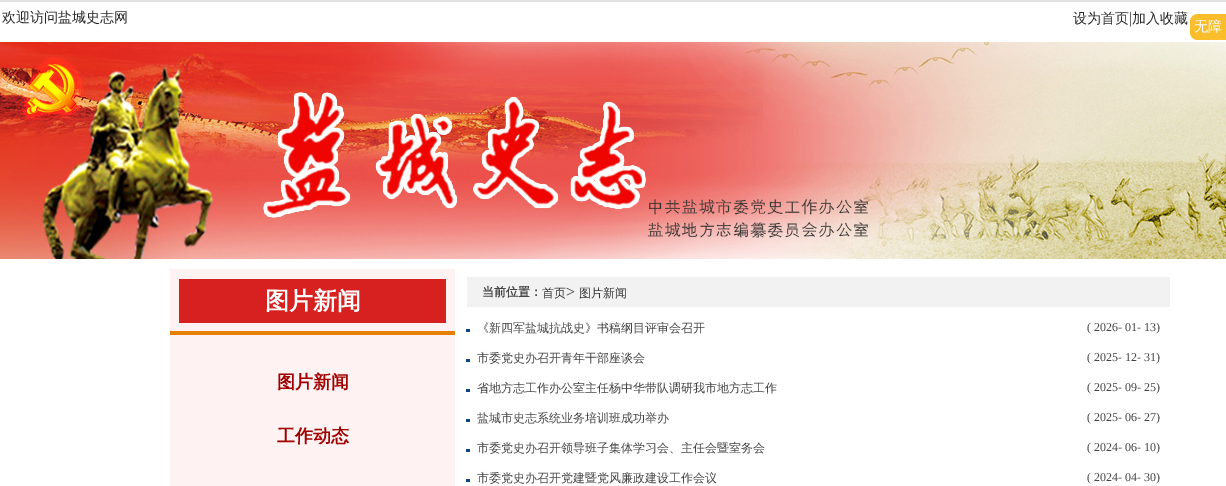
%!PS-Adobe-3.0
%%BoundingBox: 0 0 1226 486
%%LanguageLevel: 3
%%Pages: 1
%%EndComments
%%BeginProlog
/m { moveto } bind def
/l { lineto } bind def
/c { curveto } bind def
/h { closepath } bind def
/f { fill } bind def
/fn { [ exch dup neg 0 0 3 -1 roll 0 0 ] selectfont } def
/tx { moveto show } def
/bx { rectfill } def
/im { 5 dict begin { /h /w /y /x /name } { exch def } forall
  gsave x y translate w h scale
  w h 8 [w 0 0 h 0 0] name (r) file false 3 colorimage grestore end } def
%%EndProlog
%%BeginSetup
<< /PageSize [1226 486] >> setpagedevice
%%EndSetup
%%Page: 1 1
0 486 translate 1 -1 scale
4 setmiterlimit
0.886 setgray
0 0 1226 486 bx
1 setgray
0 2 1226 484 bx
/WenQuanYiZenHei-Medium 14 fn
0.157 setgray
(欢迎访问盐城史志网) 2 22 tx
(设为首页) 1073 23 tx
/LiberationSerif-Regular 16 fn
0.2 setgray
(|) 1129 23 tx
/WenQuanYiZenHei-Medium 14 fn
0.157 setgray
(加入收藏) 1132 23 tx
0.98 0.745 0.176 setrgbcolor
1198 14 m 1226 14 l 1226 40 l 1198 40 l 1193.5 40 1190 36.5 1190 32 c 1190 22 l 1190 17.5 1193.5 14 1198 14 c h f
1 setgray
(无障) 1194 31 tx
(image0.raw) 0 42 1226 217 im
1 0.949 0.949 setrgbcolor
170 269 285 217 bx
0.843 0.129 0.125 setrgbcolor
179 279 267 44 bx
/WenQuanYiZenHei-Bold 24 fn
1 setgray
(图片新闻) 265 309 tx
0.902 0.502 0 setrgbcolor
170 331 285 4 bx
/WenQuanYiZenHei-Bold 18 fn
0.627 0 0 setrgbcolor
(图片新闻) 277 388 tx
(工作动态) 277 442 tx
0.949 setgray
467 277 703 30 bx
/WenQuanYiZenHei-Bold 12 fn
0.267 setgray
(当前位置：) 482 296 tx
/WenQuanYiZenHei-Medium 12 fn
0.2 setgray
(首页) 542 297 tx
/LiberationSerif-Regular 16 fn
(>) 566 297 tx
/WenQuanYiZenHei-Medium 12 fn
(图片新闻) 579 297 tx
0.055 0.271 0.525 setrgbcolor
466 329 4 3 bx
0.267 setgray
(《新四军盐城抗战史》书稿纲目评审会召开) 477 332 tx
/LiberationSerif-Regular 12 fn
(\( 2026- 01- 13\)) 1087 331 tx
0.055 0.271 0.525 setrgbcolor
466 359 4 3 bx
/WenQuanYiZenHei-Medium 12 fn
0.267 setgray
(市委党史办召开青年干部座谈会) 477 362 tx
/LiberationSerif-Regular 12 fn
(\( 2025- 12- 31\)) 1087 361 tx
0.055 0.271 0.525 setrgbcolor
466 389 4 3 bx
/WenQuanYiZenHei-Medium 12 fn
0.267 setgray
(省地方志工作办公室主任杨中华带队调研我市地方志工作) 477 392 tx
/LiberationSerif-Regular 12 fn
(\( 2025- 09- 25\)) 1087 391 tx
0.055 0.271 0.525 setrgbcolor
466 419 4 3 bx
/WenQuanYiZenHei-Medium 12 fn
0.267 setgray
(盐城市史志系统业务培训班成功举办) 477 422 tx
/LiberationSerif-Regular 12 fn
(\( 2025- 06- 27\)) 1087 421 tx
0.055 0.271 0.525 setrgbcolor
466 449 4 3 bx
/WenQuanYiZenHei-Medium 12 fn
0.267 setgray
(市委党史办召开领导班子集体学习会、主任会暨室务会) 477 452 tx
/LiberationSerif-Regular 12 fn
(\( 2024- 06- 10\)) 1087 451 tx
0.055 0.271 0.525 setrgbcolor
466 479 4 3 bx
/WenQuanYiZenHei-Medium 12 fn
0.267 setgray
(市委党史办召开党建暨党风廉政建设工作会议) 477 482 tx
/LiberationSerif-Regular 12 fn
(\( 2024- 04- 30\)) 1087 481 tx
showpage
%%EOF
